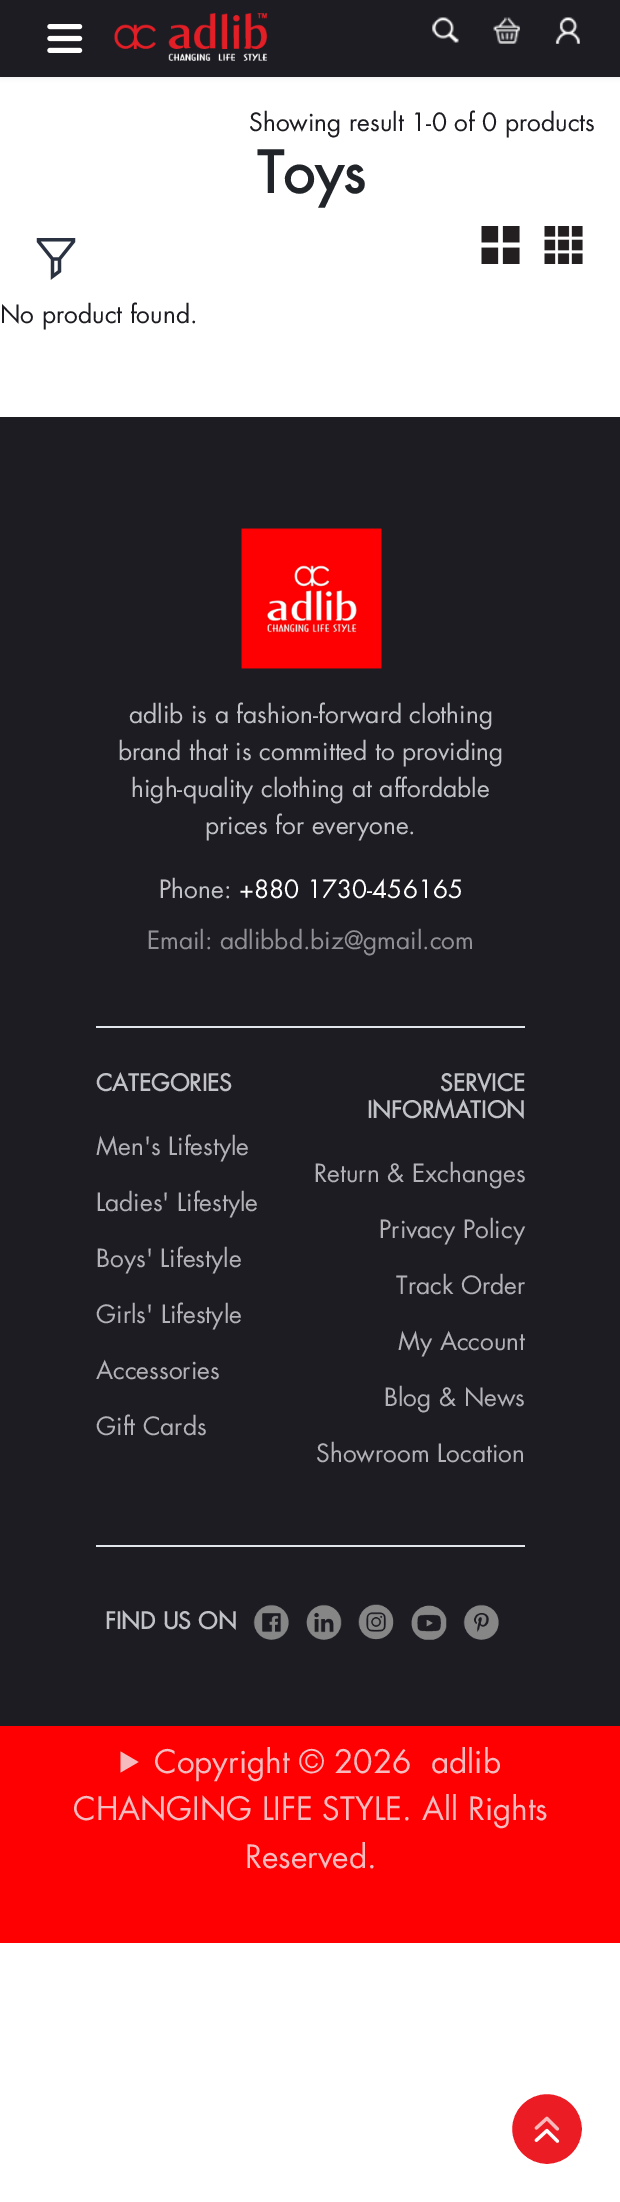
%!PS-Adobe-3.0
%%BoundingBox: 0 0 620 2202
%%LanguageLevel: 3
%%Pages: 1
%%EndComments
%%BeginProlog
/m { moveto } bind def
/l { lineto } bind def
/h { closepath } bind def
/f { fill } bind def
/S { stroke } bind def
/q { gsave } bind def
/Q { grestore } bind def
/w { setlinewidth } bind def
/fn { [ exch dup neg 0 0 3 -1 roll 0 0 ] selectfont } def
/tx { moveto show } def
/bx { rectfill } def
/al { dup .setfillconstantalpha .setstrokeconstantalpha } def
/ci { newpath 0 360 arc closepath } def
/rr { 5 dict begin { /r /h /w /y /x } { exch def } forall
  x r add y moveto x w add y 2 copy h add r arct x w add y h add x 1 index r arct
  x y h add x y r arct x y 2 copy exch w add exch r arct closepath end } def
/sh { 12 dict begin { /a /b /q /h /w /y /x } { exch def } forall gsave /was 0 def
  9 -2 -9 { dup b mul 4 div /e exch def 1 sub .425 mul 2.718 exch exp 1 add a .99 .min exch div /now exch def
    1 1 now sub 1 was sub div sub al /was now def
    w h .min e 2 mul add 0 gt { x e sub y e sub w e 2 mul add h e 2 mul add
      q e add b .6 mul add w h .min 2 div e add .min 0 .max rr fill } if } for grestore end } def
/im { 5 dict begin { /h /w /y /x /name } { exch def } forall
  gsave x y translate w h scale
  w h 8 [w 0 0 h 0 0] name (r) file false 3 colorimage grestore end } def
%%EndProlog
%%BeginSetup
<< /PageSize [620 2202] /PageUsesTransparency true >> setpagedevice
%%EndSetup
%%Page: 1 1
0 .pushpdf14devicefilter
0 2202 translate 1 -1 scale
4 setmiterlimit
1 setgray
0 0 620 2202 bx
0 setgray
0 2 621 77 0 2 0.05 sh
0.11 0.11 0.133 setrgbcolor
0 0 620 77 bx
(image0.raw) 47 24 36 29 im
(image1.raw) 114 13 154 48 im
(image2.raw) 432 17 27 26 im
(image3.raw) 493 17 27 27 im
(image4.raw) 555 17 25 27 im
/Futura-Regular 24.5 fn
(Showing result 1-0 of 0 products) 249 131 tx
/Futura-Bold 56 fn
0.129 0.145 0.161 setrgbcolor
(Toys) 257 193 tx
(image5.raw) 36 238 40 42 im
(image6.raw) 481 226 39 38 im
(image7.raw) 544 226 39 38 im
/Futura-Regular 24.5 fn
0.11 0.11 0.133 setrgbcolor
(No product found.) 0 323 tx
0.114 0.11 0.133 setrgbcolor
0 417 620 1309 bx
0.886 0.898 0.925 setrgbcolor
96 1026 429 2 bx
(image8.raw) 241 528 141 141 im
0.757 0.761 0.78 setrgbcolor
(adlib is a fashion-forward clothing) 129 723 tx
(brand that is committed to providing) 118 760 tx
(high-quality clothing at affordable) 131 797 tx
(prices for everyone.) 205 834 tx
(Phone:) 159 898 tx
1 setgray
(+880 1730-456165) 239 898 tx
0.565 0.565 0.588 setrgbcolor
(Email: adlibbd.biz@gmail.com) 147 949 tx
/Futura-Bold 22.75 fn
0.757 0.761 0.78 setrgbcolor
(CATEGORIES) 96 1091 tx
/Futura-Regular 24.5 fn
0.694 0.694 0.718 setrgbcolor
(Men's Lifestyle) 96 1155 tx
(Ladies' Lifestyle) 96 1211 tx
(Boys' Lifestyle) 96 1267 tx
(Girls' Lifestyle) 96 1323 tx
(Accessories) 96 1379 tx
(Gift Cards) 96 1435 tx
/Futura-Bold 22.75 fn
0.757 0.761 0.78 setrgbcolor
(SERVICE) 440 1091 tx
(INFORMATION) 367 1118 tx
/Futura-Regular 24.5 fn
0.694 0.694 0.718 setrgbcolor
(Return & Exchanges) 314 1182 tx
(Privacy Policy) 379 1238 tx
(Track Order) 396 1294 tx
(My Account) 398 1350 tx
(Blog & News) 384 1406 tx
(Showroom Location) 316 1462 tx
0.886 0.898 0.925 setrgbcolor
96 1545 429 2 bx
/Futura-Bold 22.75 fn
0.757 0.761 0.78 setrgbcolor
(FIND US ON) 105 1629 tx
(image9.raw) 253 1604 36 36 im
(image10.raw) 306 1604 36 36 im
(image11.raw) 358 1604 36 36 im
(image12.raw) 411 1605 36 35 im
(image13.raw) 463 1604 36 36 im
0.996 0 0.008 setrgbcolor
0 1726 620 217 bx
0.961 0.733 0.749 setrgbcolor
120.5 1751.5 m 138.5 1762 l 120.5 1772.5 l h f
/Futura-Regular 31.5 fn
(Copyright © 2026  adlib) 154 1773 tx
(CHANGING LIFE STYLE. All Rights) 73 1820 tx
(Reserved.) 245 1868 tx
0.925 0.11 0.141 setrgbcolor
547 2129 37 ci q f Q
1 setgray
4 w
S
(image14.raw) 534 2116 26 27 im
.poppdf14devicefilter showpage
%%EOF
